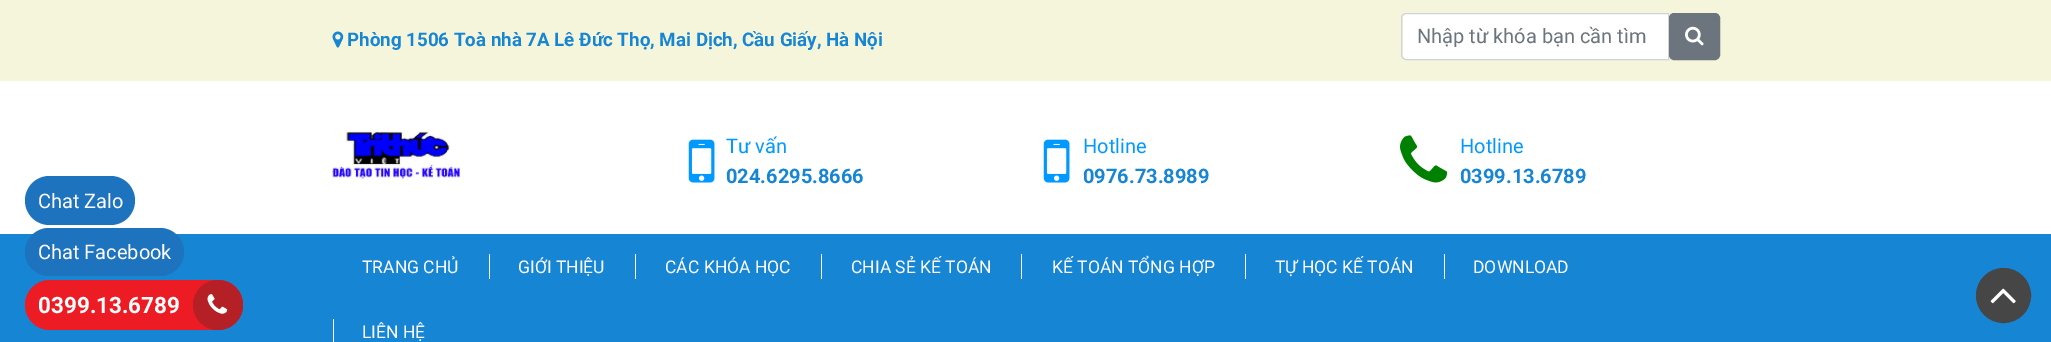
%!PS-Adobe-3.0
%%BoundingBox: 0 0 2051 342
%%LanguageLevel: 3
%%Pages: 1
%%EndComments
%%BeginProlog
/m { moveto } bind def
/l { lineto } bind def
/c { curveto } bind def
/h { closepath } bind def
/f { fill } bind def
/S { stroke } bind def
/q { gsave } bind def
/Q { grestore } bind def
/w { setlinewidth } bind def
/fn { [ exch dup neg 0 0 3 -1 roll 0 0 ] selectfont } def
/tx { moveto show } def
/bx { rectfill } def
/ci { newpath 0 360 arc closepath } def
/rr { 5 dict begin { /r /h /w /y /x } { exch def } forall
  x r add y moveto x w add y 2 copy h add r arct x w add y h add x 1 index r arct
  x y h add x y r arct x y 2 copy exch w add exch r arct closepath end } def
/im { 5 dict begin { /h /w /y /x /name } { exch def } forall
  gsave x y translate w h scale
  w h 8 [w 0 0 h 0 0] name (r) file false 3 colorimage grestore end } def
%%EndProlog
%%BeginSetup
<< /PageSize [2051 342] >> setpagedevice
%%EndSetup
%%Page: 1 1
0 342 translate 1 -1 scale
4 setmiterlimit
1 setgray
0 0 2051 342 bx
0.118 0.451 0.745 setrgbcolor
25 176 110 49 24.5 rr f
/Roboto-Regular 20 fn
1 setgray
(Chat Zalo) 38 208 tx
0.961 0.961 0.863 setrgbcolor
0 0 2051 81 bx
(image0.raw) 332 31 12 17 im
/Roboto-Bold 18.75 fn
0.086 0.522 0.827 setrgbcolor
(Phòng 1506 Toà nhà 7A Lê Đức Thọ, Mai Dịch, Cầu Giấy, Hà Nội) 347 46 tx
1 setgray
1407 14 m 1668 14 l 1668 59 l 1407 59 l 1405 59 1403 57 1403 55 c 1403 18 l 1403 16 1405 14 1407 14 c h f
0.808 0.831 0.855 setrgbcolor
1406 13.5 m 1668.5 13.5 l 1668.5 59.5 l 1406 59.5 l 1403.5 59.5 1401.5 57.5 1401.5 55 c 1401.5 18 l 1401.5 15.5 1403.5 13.5 1406 13.5 c h S
/Roboto-Regular 20 fn
0.424 0.459 0.49 setrgbcolor
(Nhập từ khóa bạn cần tìm) 1417 43 tx
1669.5 13.5 50 46 4.5 rr q f Q
S
(image1.raw) 1685 26 19 20 im
(image2.raw) 332 131 128 49 im
(image3.raw) 688 139 27 44 im
0 0.6 1 setrgbcolor
(Tư vấn) 726 153 tx
/Roboto-Bold 20 fn
0.086 0.522 0.827 setrgbcolor
(024.6295.8666) 726 183 tx
(image3.raw) 1043 139 27 44 im
/Roboto-Regular 20 fn
0 0.6 1 setrgbcolor
(Hotline) 1083 153 tx
/Roboto-Bold 20 fn
0.086 0.522 0.827 setrgbcolor
(0976.73.8989) 1083 183 tx
(image4.raw) 1400 135 48 48 im
/Roboto-Regular 20 fn
0 0.6 1 setrgbcolor
(Hotline) 1460 153 tx
/Roboto-Bold 20 fn
0.086 0.522 0.827 setrgbcolor
(0399.13.6789) 1460 183 tx
0 234 2051 108 bx
/Roboto-Regular 17.5 fn
1 setgray
(TRANG CHỦ) 362 273 tx
489 254 1 25 bx
(GIỚI THIỆU) 518 273 tx
635 254 1 25 bx
(CÁC KHÓA HỌC) 665 273 tx
821 254 1 25 bx
(CHIA SẺ KẾ TOÁN) 851 273 tx
1021 254 1 25 bx
(KẾ TOÁN TỔNG HỢP) 1052 273 tx
1245 254 1 25 bx
(TỰ HỌC KẾ TOÁN) 1275 273 tx
1444 254 1 25 bx
(DOWNLOAD) 1473 273 tx
333 319 1 23 bx
(LIÊN HỆ) 362 338 tx
0.275 setgray
2003.5 295.5 25.5 ci q f Q
4 w
S
(image5.raw) 1990 288 26 16 im
0.118 0.451 0.745 setrgbcolor
25 228 159 48 24 rr f
/Roboto-Regular 20 fn
1 setgray
(Chat Facebook) 38 259 tx
0.929 0.11 0.141 setrgbcolor
25 280 218 50 25 rr f
/Roboto-Bold 22.5 fn
1 setgray
(0399.13.6789) 38 313 tx
0.71 0.125 0.149 setrgbcolor
218 305 25 ci f
(image6.raw) 207 294 21 20 im
showpage
%%EOF
